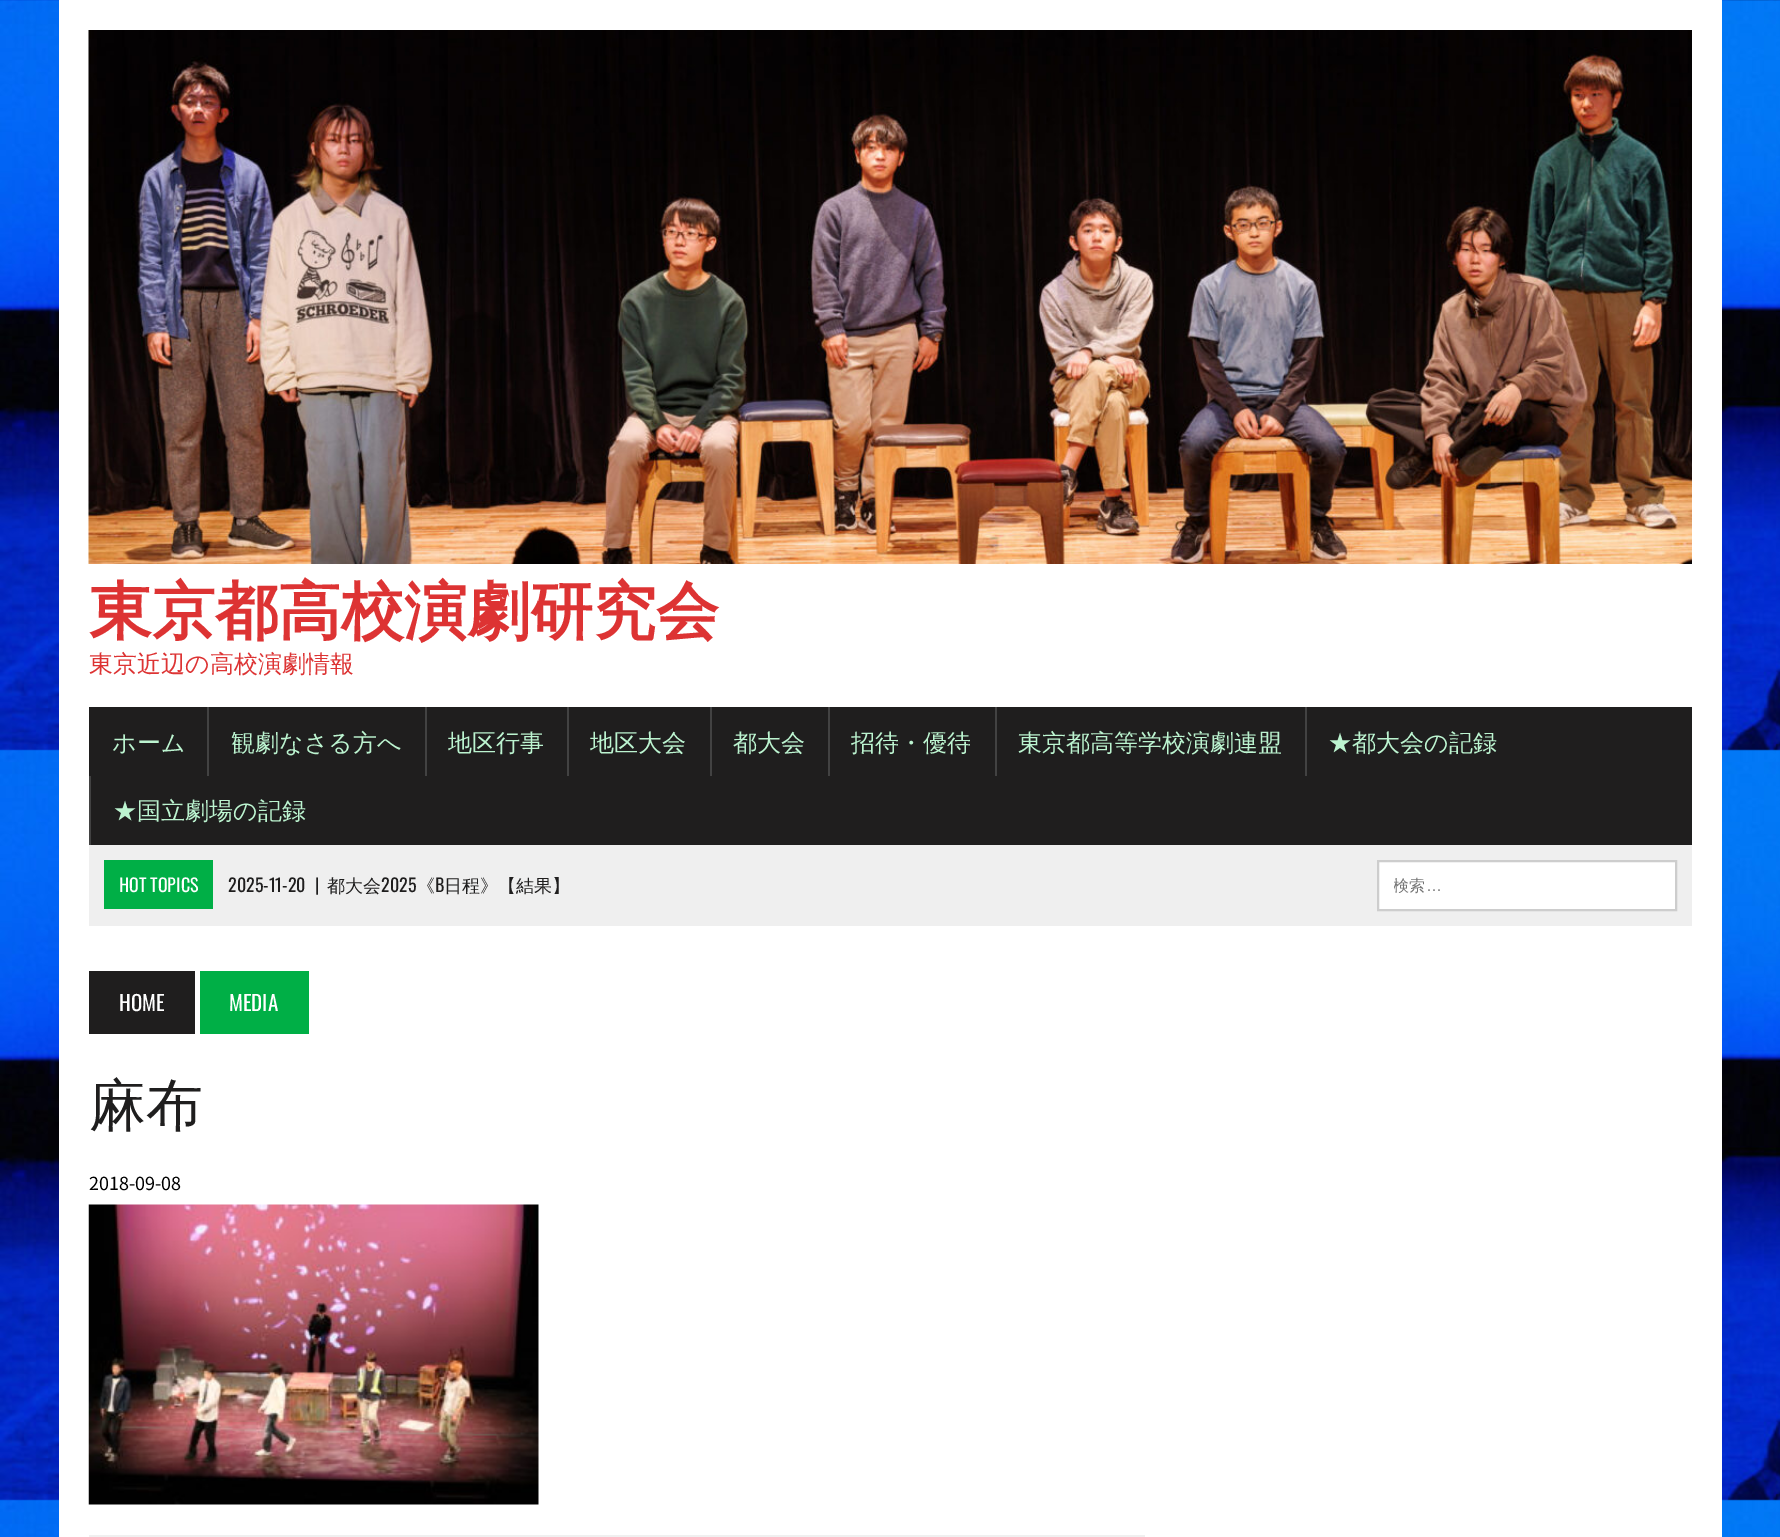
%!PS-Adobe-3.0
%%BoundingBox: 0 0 1780 1537
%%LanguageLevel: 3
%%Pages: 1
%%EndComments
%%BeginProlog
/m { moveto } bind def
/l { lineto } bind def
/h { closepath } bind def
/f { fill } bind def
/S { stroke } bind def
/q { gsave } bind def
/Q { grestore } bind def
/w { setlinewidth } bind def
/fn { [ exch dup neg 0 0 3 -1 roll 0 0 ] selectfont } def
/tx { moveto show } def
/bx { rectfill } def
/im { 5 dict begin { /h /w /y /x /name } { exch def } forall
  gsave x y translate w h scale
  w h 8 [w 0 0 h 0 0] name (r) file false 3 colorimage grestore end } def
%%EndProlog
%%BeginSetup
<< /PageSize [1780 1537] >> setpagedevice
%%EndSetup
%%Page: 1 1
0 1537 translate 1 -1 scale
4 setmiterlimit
1 setgray
0 0 1780 1537 bx
(image0.raw) 0 0 1780 1537 im
59 0 1663 1537 bx
(image1.raw) 88 30 1604 534 im
/WenQuanYiZenHei-Bold 63 fn
0.867 0.2 0.2 setrgbcolor
(東京都高校演劇研究会) 89 633 tx
/WenQuanYiZenHei-Medium 24 fn
(東京近辺の高校演劇情報) 89 672 tx
0.122 0.118 0.118 setrgbcolor
89 707 1603 138 bx
0.737 0.957 0.816 setrgbcolor
(ホーム) 112 751 tx
0.259 setgray
207 707 2 69 bx
0.737 0.957 0.816 setrgbcolor
(観劇なさる方へ) 231 751 tx
0.259 setgray
425 707 2 69 bx
0.737 0.957 0.816 setrgbcolor
(地区行事) 448 751 tx
0.259 setgray
567 707 2 69 bx
0.737 0.957 0.816 setrgbcolor
(地区大会) 590 751 tx
0.259 setgray
710 707 2 69 bx
0.737 0.957 0.816 setrgbcolor
(都大会) 733 751 tx
0.259 setgray
828 707 2 69 bx
0.737 0.957 0.816 setrgbcolor
(招待・優待) 851 751 tx
0.259 setgray
995 707 2 69 bx
0.737 0.957 0.816 setrgbcolor
(東京都高等学校演劇連盟) 1018 751 tx
0.259 setgray
1305 707 2 69 bx
0.737 0.957 0.816 setrgbcolor
(★都大会の記録) 1328 751 tx
0.259 setgray
89 776 2 69 bx
0.737 0.957 0.816 setrgbcolor
(★国立劇場の記録) 113 819 tx
0.937 setgray
89 845 1603 81 bx
0 0.686 0.275 setrgbcolor
104 860 109 49 bx
/Oswald-Regular 18 fn
1 setgray
(HOT TOPICS) 119 892 tx
0.122 0.118 0.118 setrgbcolor
(2025-11-20) 228 892 tx
(|) 315 892 tx
/WenQuanYiZenHei-Medium 18 fn
(都大会) 327 892 tx
/Oswald-Regular 18 fn
(2025) 381 892 tx
/WenQuanYiZenHei-Medium 18 fn
(《) 417 892 tx
/Oswald-Regular 18 fn
(B) 435 892 tx
/WenQuanYiZenHei-Medium 18 fn
(日程》【結果】) 444 892 tx
1 setgray
1378 861 m 1676 861 l 1676 910 l 1378 910 l h q f Q
0.804 setgray
2 w
S
q
1394 875 249 22 rectclip
/WenQuanYiZenHei-Medium 16 fn
0.459 setgray
(検索) 1393 891 tx
Q
/LiberationSans-Regular 16 fn
0.459 setgray
(…) 1426 891 tx
0.122 0.118 0.118 setrgbcolor
89 971 106 63 bx
/Oswald-Regular 21 fn
1 setgray
(HOME) 119 1011 tx
0 0.686 0.275 setrgbcolor
200 971 109 63 bx
1 setgray
(MEDIA) 229 1011 tx
/WenQuanYiZenHei-Medium 57 fn
0.122 0.118 0.118 setrgbcolor
(麻布) 89 1125 tx
/NotoSansJP-Thin 18 fn
0 setgray
(2018-09-08) 89 1190 tx
(image2.raw) 88 1204 451 301 im
0.941 setgray
89 1535 1056 2 bx
showpage
%%EOF
